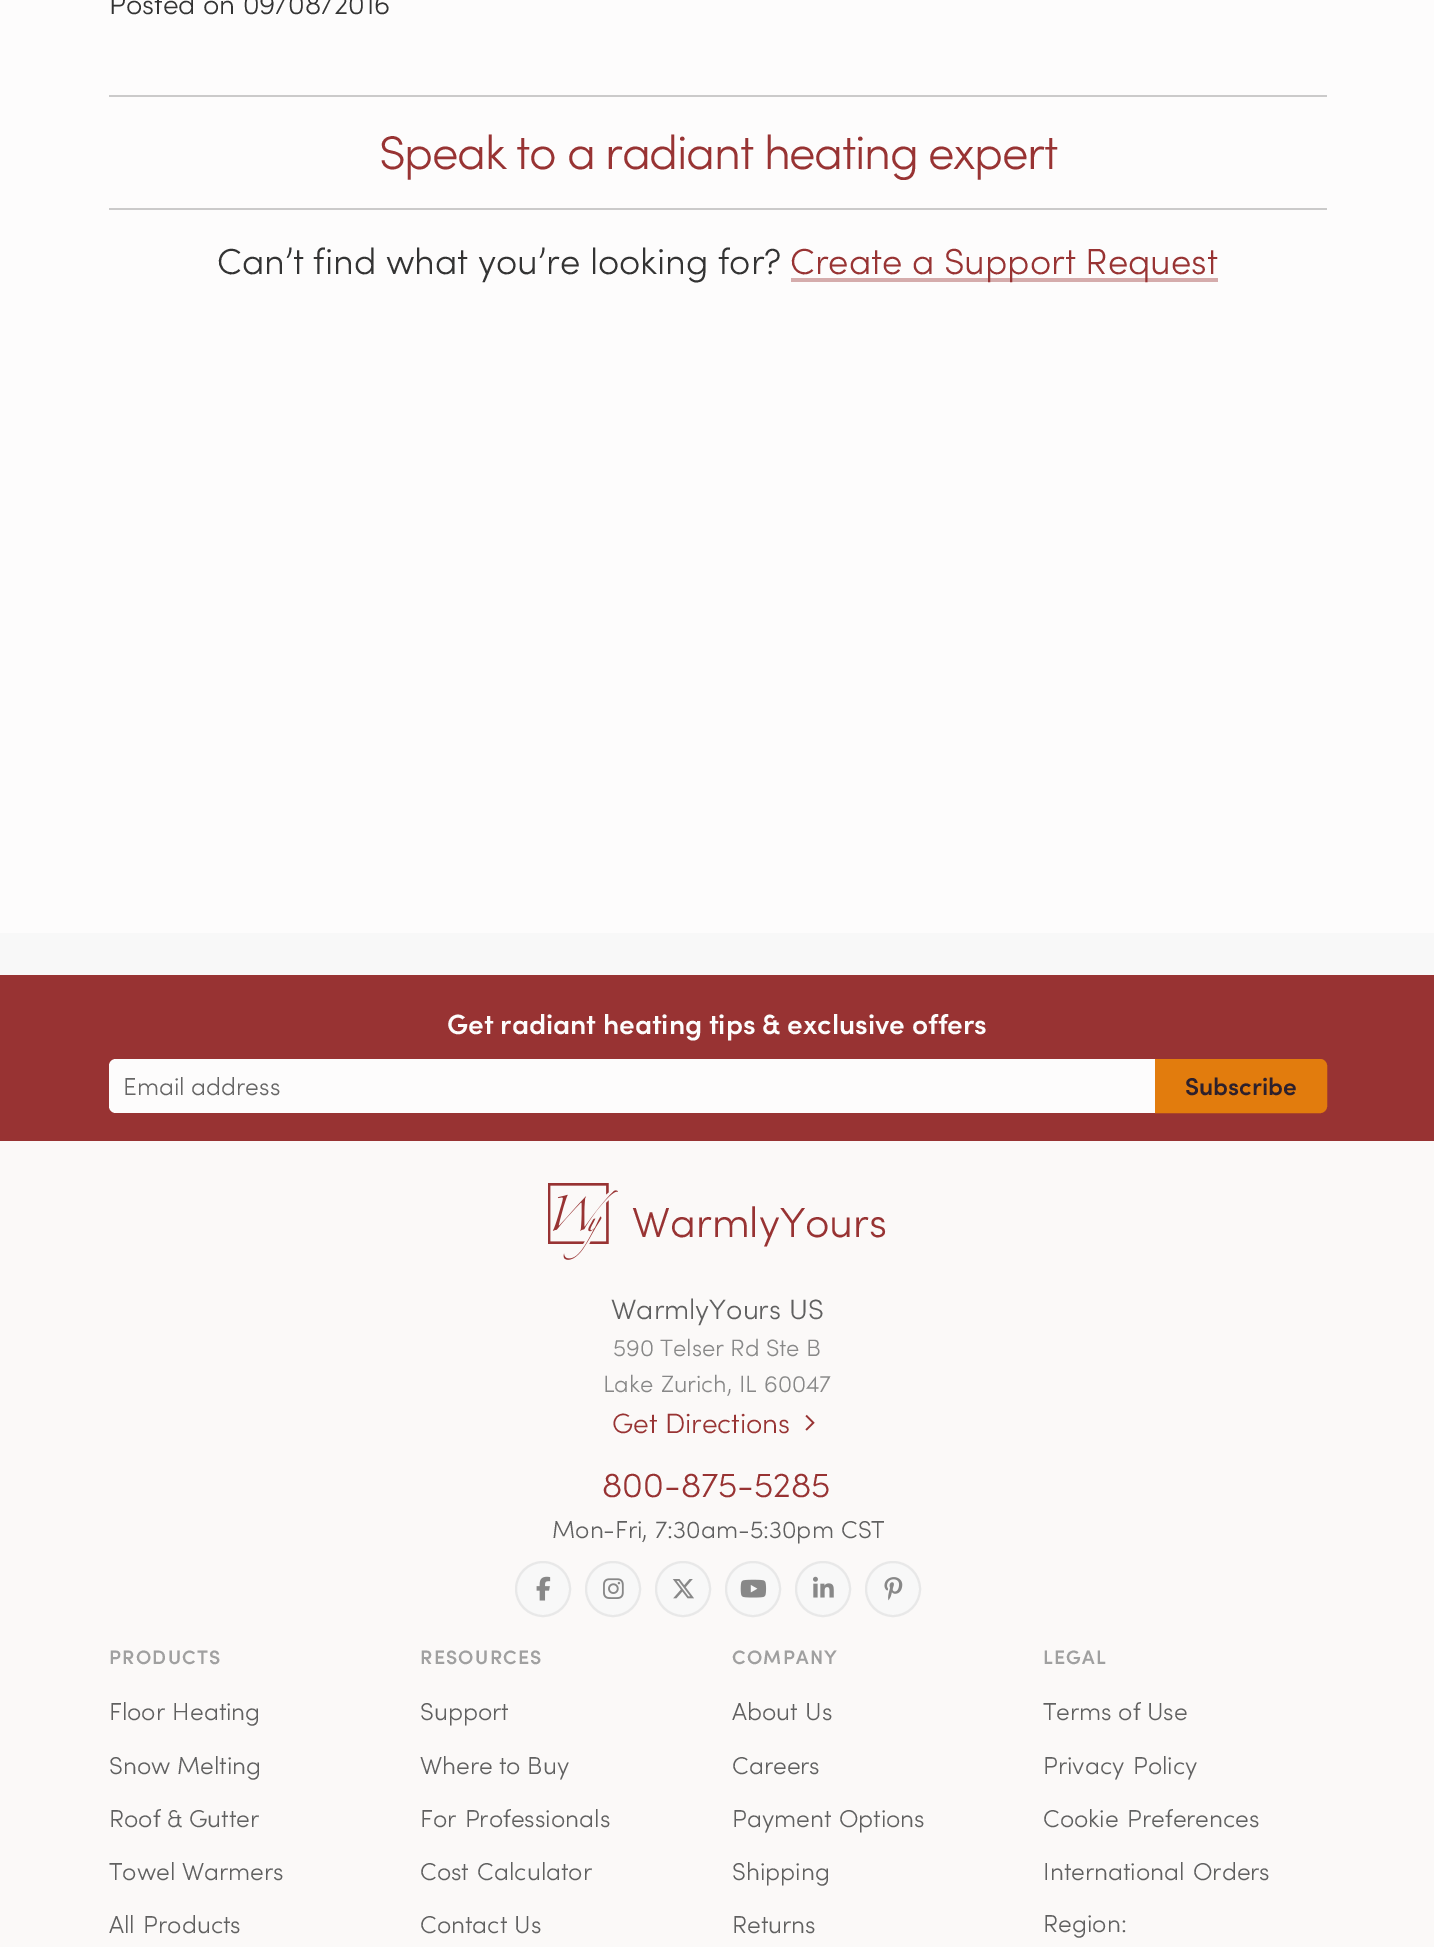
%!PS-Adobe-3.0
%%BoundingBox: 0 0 1434 1947
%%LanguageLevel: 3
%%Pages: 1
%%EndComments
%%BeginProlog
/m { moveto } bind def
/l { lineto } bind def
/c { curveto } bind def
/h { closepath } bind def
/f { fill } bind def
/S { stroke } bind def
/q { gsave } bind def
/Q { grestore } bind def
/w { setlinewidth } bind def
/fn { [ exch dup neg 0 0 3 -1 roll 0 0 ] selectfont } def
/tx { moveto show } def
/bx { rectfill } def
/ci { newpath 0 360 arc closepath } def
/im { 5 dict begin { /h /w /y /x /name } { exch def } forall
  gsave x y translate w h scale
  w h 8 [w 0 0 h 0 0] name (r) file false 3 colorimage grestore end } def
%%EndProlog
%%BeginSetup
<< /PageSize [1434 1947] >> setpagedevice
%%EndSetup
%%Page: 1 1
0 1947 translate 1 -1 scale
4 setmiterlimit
0.992 0.988 0.988 setrgbcolor
0 0 1434 1947 bx
/Sofia-Light 28 fn
0.2 setgray
(Posted on 09/08/2016) 109 14 tx
0.796 0.792 0.792 setrgbcolor
109 95 1218 2 bx
/Sofia-Light 47.4 fn
0.596 0.2 0.2 setrgbcolor
379 169 m -1.4 0 (Speak to a radiant heating expert) ashow
0.796 0.792 0.792 setrgbcolor
109 208 1218 2 bx
/Sofia-Light 36.4 fn
0.2 setgray
(Can’t find what you’re looking for?) 217 274 tx
0.835 0.675 0.675 setrgbcolor
791 278 427 4 bx
0.596 0.2 0.2 setrgbcolor
(Create a Support Request) 790 274 tx
0.973 setgray
0 933 1434 42 bx
0.596 0.2 0.2 setrgbcolor
0 975 1434 166 bx
/Sofia-SemiBold 28 fn
0.992 0.988 0.988 setrgbcolor
(Get radiant heating tips & exclusive offers) 447 1034 tx
116 1059 m 1157 1059 l 1157 1113 l 116 1113 l 112 1113 109 1110 109 1106 c 109 1066 l 109 1062 112 1059 116 1059 c h f
/Sofia-Light 24.5 fn
0.4 0.396 0.396 setrgbcolor
(Email address) 123 1095 tx
0.886 0.486 0.051 setrgbcolor
1156 1060 m 1320 1060 l 1323.5 1060 1326 1062.5 1326 1066 c 1326 1106 l 1326 1109.5 1323.5 1112 1320 1112 c 1156 1112 l h q f Q
2 w
S
/Sofia-SemiBold 24.5 fn
0.176 0.125 0.173 setrgbcolor
(Subscribe) 1185 1095 tx
0.984 0.976 0.973 setrgbcolor
0 1141 1434 806 bx
(image0.raw) 548 1183 70 77 im
/Sofia-Light 42 fn
0.596 0.2 0.2 setrgbcolor
(WarmlyYours) 632 1237 tx
/Sofia-Light 28 fn
0.376 setgray
611 1319 m 1 0 32 (WarmlyYours US) widthshow
/Sofia-Light 23.75 fn
0.533 setgray
(590 Telser Rd Ste B) 613 1356 tx
603 1392 m 1 0 32 (Lake Zurich, IL 60047) widthshow
/Sofia-Light 28 fn
0.596 0.2 0.2 setrgbcolor
(Get Directions) 612 1433 tx
(image1.raw) 805 1414 10 17 im
/Sofia-Light 35 fn
(800-875-5285) 602 1497 tx
/Sofia-Light 24.5 fn
0.376 setgray
552 1538 m 1 0 32 (Mon-Fri, 7:30am-5:30pm CST) widthshow
0.973 setgray
543 1589 27 ci q f Q
0.91 setgray
S
(image2.raw) 536 1576 15 25 im
0.973 setgray
613 1589 27 ci q f Q
0.91 setgray
S
(image3.raw) 603 1578 21 21 im
0.973 setgray
683 1589 27 ci q f Q
0.91 setgray
S
(image4.raw) 672 1579 22 20 im
0.973 setgray
753 1589 27 ci q f Q
0.91 setgray
S
(image5.raw) 740 1579 27 19 im
0.973 setgray
823 1589 27 ci q f Q
0.91 setgray
S
(image6.raw) 813 1576 21 22 im
0.973 setgray
893 1589 27 ci q f Q
0.91 setgray
S
(image7.raw) 884 1577 19 24 im
/Sofia-SemiBold 19.5 fn
0.627 setgray
109 1664 m 1.25 0 (PRODUCTS) ashow
/Sofia-Light 24.5 fn
0.376 setgray
109 1720 m 1 0 32 (Floor Heating) widthshow
(Snow Melting) 109 1774 tx
(Roof & Gutter) 109 1827 tx
(Towel Warmers) 109 1880 tx
109 1933 m 2 0 32 (All Products) widthshow
/Sofia-SemiBold 19.5 fn
0.627 setgray
420 1664 m 1.25 0 (RESOURCES) ashow
/Sofia-Light 24.5 fn
0.376 setgray
(Support) 420 1720 tx
(Where to Buy) 420 1774 tx
420 1827 m 2 0 32 (For Professionals) widthshow
420 1880 m 2 0 32 (Cost Calculator) widthshow
420 1933 m 1 0 32 (Contact Us) widthshow
/Sofia-SemiBold 19.5 fn
0.627 setgray
732 1664 m 1.25 0 (COMPANY) ashow
/Sofia-Light 24.5 fn
0.376 setgray
732 1720 m 1 0 32 (About Us) widthshow
(Careers) 732 1774 tx
732 1827 m 1 0 32 (Payment Options) widthshow
(Shipping) 732 1880 tx
(Returns) 732 1933 tx
/Sofia-SemiBold 19.5 fn
0.627 setgray
1043 1664 m 1.25 0 (LEGAL) ashow
/Sofia-Light 24.5 fn
0.376 setgray
(Terms of Use) 1043 1720 tx
1043 1774 m 2 0 32 (Privacy Policy) widthshow
1043 1827 m 2 0 32 (Cookie Preferences) widthshow
1043 1880 m 2 0 32 (International Orders) widthshow
(Region:) 1043 1932 tx
showpage
%%EOF
